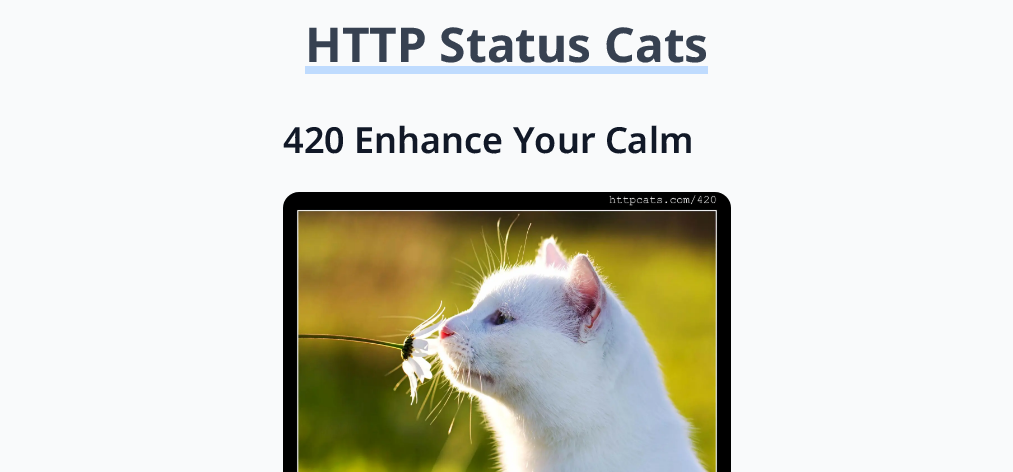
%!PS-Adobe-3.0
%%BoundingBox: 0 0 1013 472
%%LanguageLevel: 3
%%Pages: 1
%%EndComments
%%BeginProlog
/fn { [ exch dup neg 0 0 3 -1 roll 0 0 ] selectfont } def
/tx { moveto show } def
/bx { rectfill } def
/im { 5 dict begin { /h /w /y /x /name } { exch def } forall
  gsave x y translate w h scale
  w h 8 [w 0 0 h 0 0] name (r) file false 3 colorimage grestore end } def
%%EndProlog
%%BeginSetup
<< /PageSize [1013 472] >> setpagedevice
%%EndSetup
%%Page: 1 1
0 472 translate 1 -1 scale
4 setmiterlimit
0.976 0.98 0.984 setrgbcolor
0 0 1013 472 bx
/NotoSans-Bold 48 fn
0.216 0.255 0.318 setrgbcolor
(HTTP Status Cats) 305 62 tx
0.749 0.859 0.996 setrgbcolor
305 66 403 8 bx
/NotoSans-SemiBold 36 fn
0.067 0.094 0.153 setrgbcolor
(420 Enhance Your Calm) 283 153 tx
(image0.raw) 283 192 448 280 im
showpage
%%EOF
